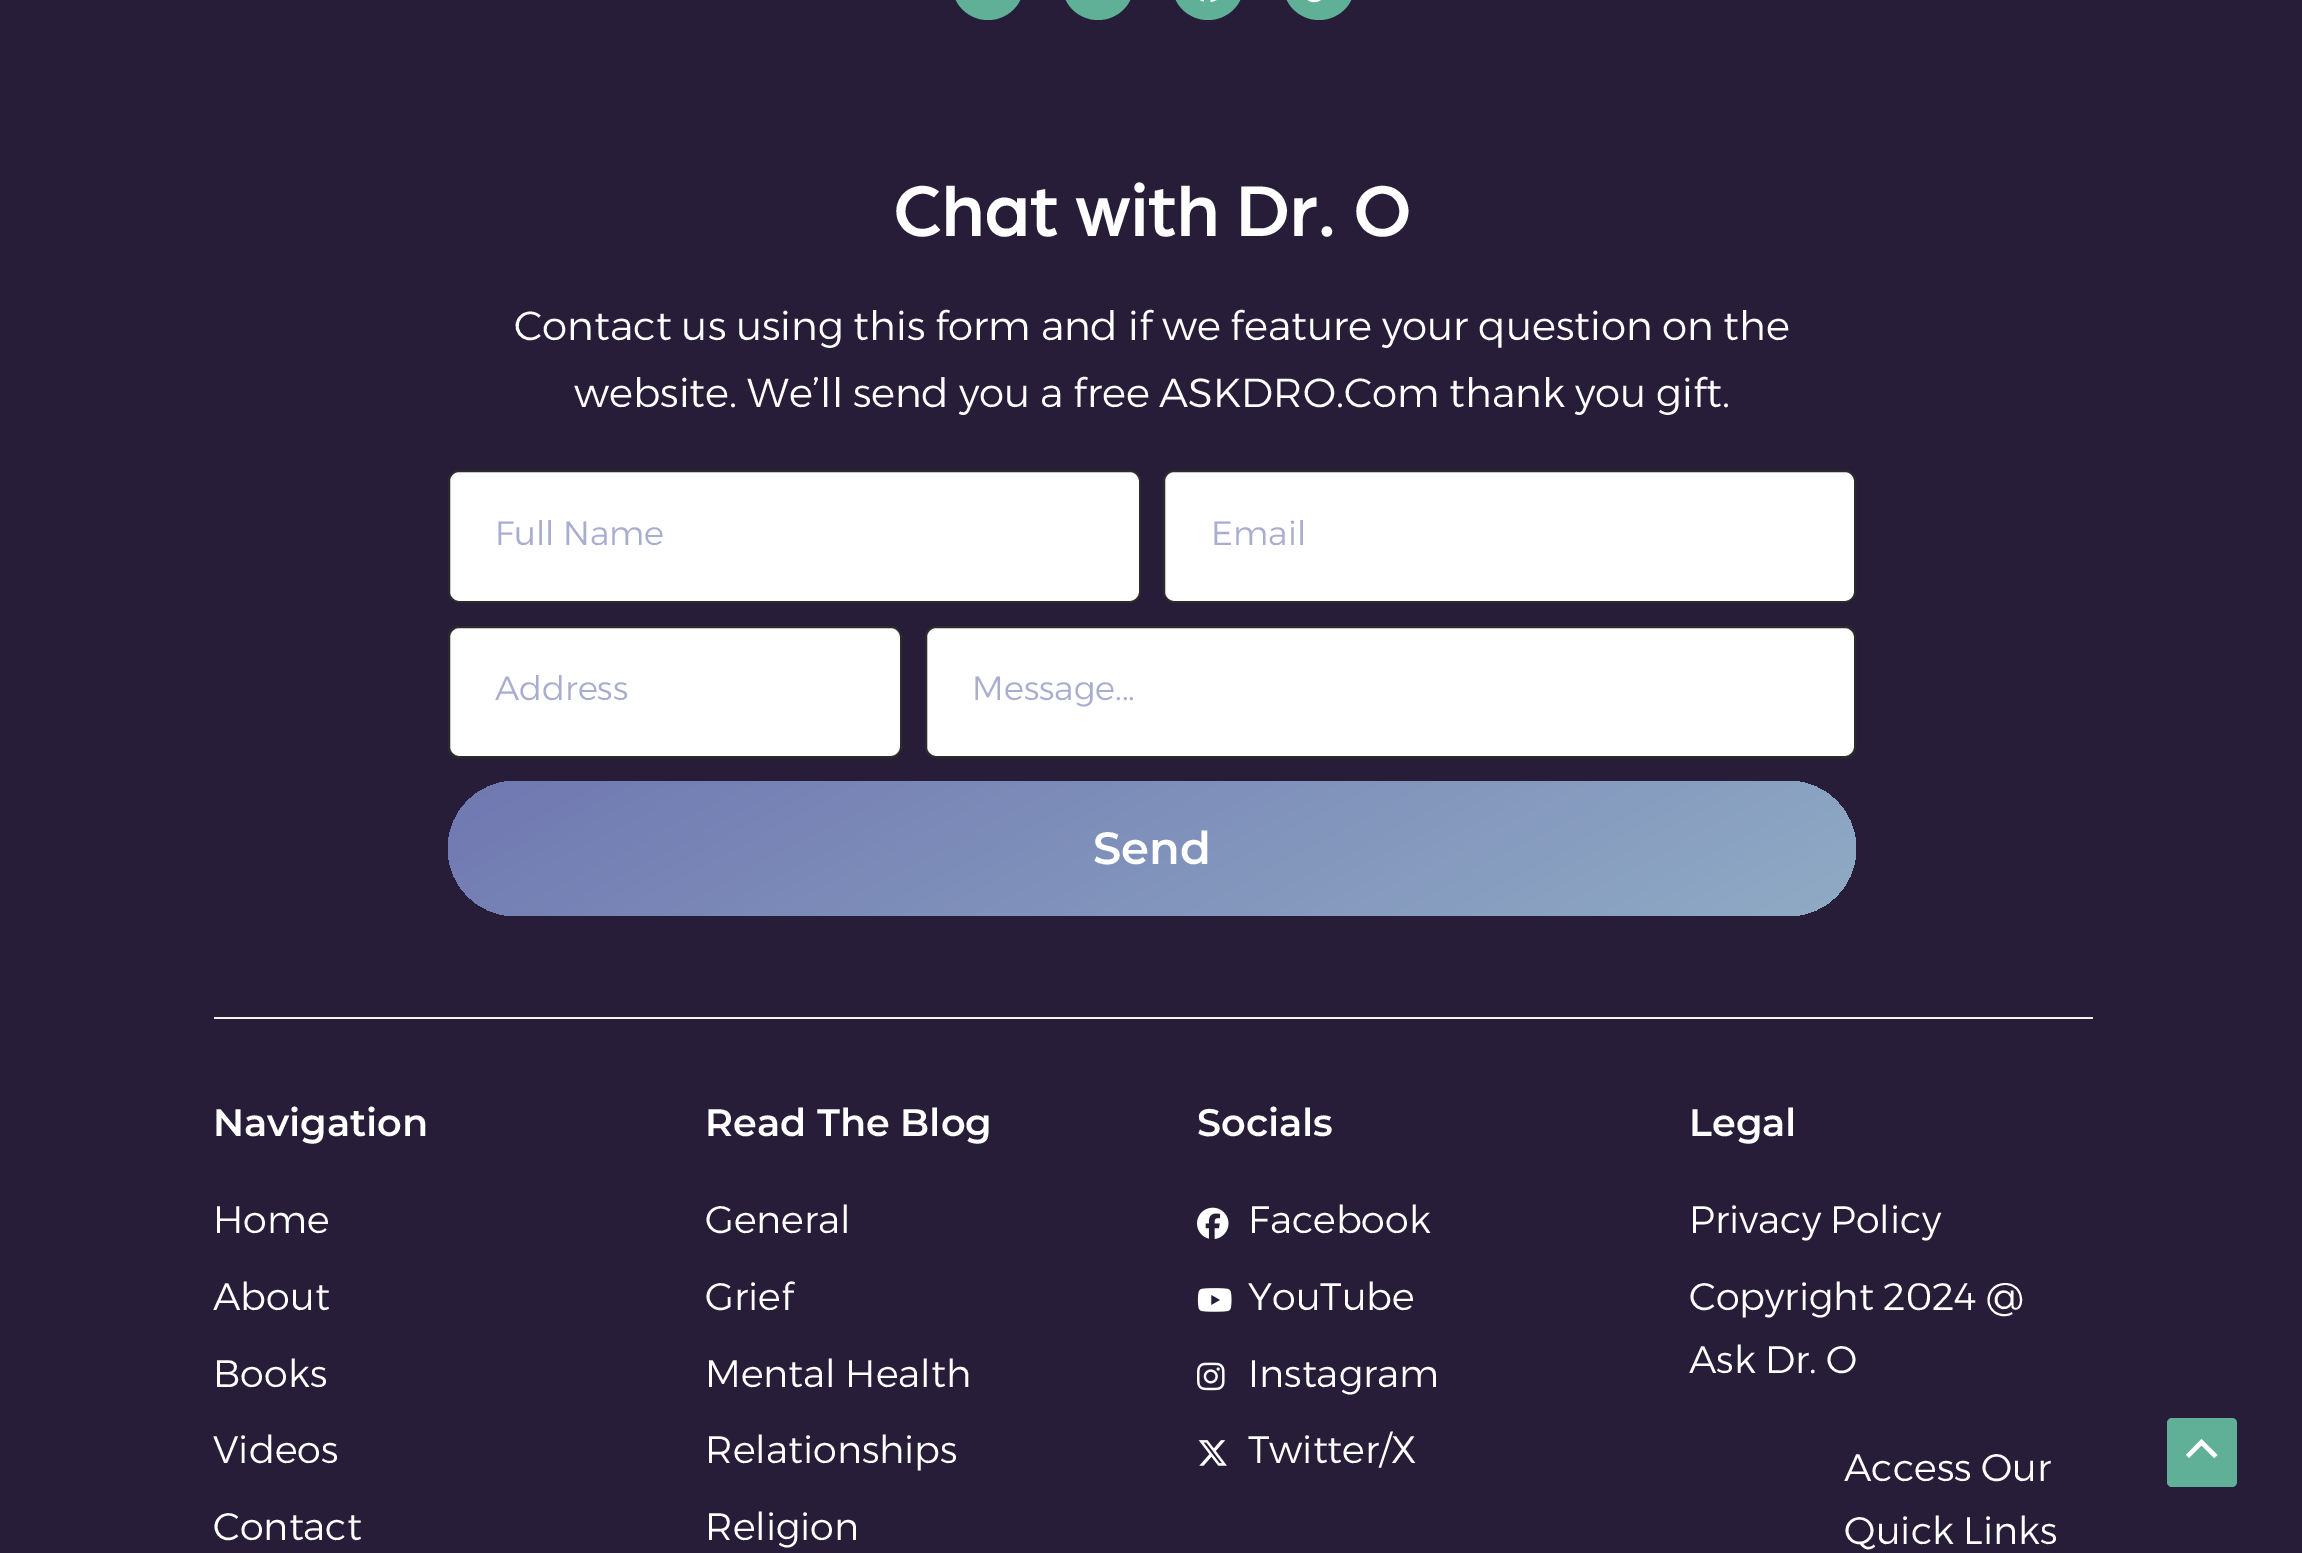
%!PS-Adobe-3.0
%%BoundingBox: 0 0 2302 1553
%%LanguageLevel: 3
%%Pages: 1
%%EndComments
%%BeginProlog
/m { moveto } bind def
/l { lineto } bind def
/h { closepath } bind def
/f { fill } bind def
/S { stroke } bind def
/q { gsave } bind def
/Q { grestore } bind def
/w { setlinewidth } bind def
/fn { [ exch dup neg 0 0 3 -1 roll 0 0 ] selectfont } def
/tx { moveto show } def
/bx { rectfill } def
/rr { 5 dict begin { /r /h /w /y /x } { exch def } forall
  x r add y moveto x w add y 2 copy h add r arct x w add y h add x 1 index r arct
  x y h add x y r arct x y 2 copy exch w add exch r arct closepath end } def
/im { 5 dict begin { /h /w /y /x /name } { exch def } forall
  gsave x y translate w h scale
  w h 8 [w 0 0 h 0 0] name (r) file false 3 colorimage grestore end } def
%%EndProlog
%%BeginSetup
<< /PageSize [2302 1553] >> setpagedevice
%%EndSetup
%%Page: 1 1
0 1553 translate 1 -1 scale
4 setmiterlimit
0.153 0.114 0.22 setrgbcolor
0 0 2302 1553 bx
0.373 0.69 0.592 setrgbcolor
952 -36 72 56 36 rr f
1062 -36 72 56 36 rr f
1172 -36 72 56 36 rr f
(image0.raw) 1199 0 18 2 im
1283 -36 72 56 36 rr f
(image1.raw) 1307 0 14 3 im
/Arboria-Medium 76.5 fn
1 setgray
(Chat with Dr. O) 893 236 tx
/Alexandria-Light 40.5 fn
(Contact us using this form and if we feature your question on the) 514 340 tx
(website. We’ll send you a free ASKDRO.Com thank you gift.) 574 407 tx
449 471 691 131 10 rr q f Q
0.169 setgray
2 w
S
q
495 520 599 34 rectclip
/Alexandria-Light 33.75 fn
0.663 0.682 0.816 setrgbcolor
(Full Name) 495 545 tx
Q
1 setgray
1164 471 691 131 10 rr q f Q
0.169 setgray
S
/Alexandria-Light 33.75 fn
0.663 0.682 0.816 setrgbcolor
(Email) 1211 545 tx
1 setgray
449 627 452 130 10 rr q f Q
0.169 setgray
S
q
495 675 360 34 rectclip
0.663 0.682 0.816 setrgbcolor
(Address) 495 700 tx
Q
1 setgray
926 627 929 130 10 rr q f Q
0.169 setgray
S
0.663 0.682 0.816 setrgbcolor
(Message...) 972 700 tx
q 448 781 1408 135 67.5 rr clip newpath
<< /ShadingType 2 /ColorSpace /DeviceRGB /Coords [969 504 1335 1193] /Extend [true true] /Function << /FunctionType 2 /Domain [0 1] /C0 [0.439 0.471 0.694] /C1 [0.565 0.671 0.773] /N 1 >> >> shfill Q
/Montserrat-SemiBold 45 fn
1 setgray
(Send) 1093 864 tx
0.969 0.949 0.949 setrgbcolor
214 1017 1879 2 bx
/Montserrat-SemiBold 38.25 fn
1 setgray
(Navigation) 213 1136 tx
/Alexandria-Light 38.25 fn
(Home) 213 1233 tx
(About) 213 1310 tx
(Books) 213 1387 tx
(Videos) 213 1463 tx
(Contact) 213 1540 tx
/Montserrat-SemiBold 38.25 fn
(Read The Blog) 705 1136 tx
/Alexandria-Light 38.25 fn
(General) 705 1233 tx
(Grief) 705 1310 tx
(Mental Health) 705 1387 tx
(Relationships) 705 1463 tx
(Religion) 705 1540 tx
/Montserrat-SemiBold 38.25 fn
(Socials) 1197 1136 tx
(image2.raw) 1197 1207 32 32 im
/Alexandria-Light 38.25 fn
(Facebook) 1248 1233 tx
(image3.raw) 1197 1288 35 24 im
(YouTube) 1248 1310 tx
(image4.raw) 1197 1362 28 29 im
(Instagram) 1248 1387 tx
(image5.raw) 1198 1440 29 26 im
(Twitter/X) 1248 1463 tx
/Montserrat-SemiBold 38.25 fn
(Legal) 1689 1136 tx
/Alexandria-Light 38.25 fn
(Privacy Policy) 1689 1233 tx
(Copyright 2024 @) 1689 1310 tx
(Ask Dr. O) 1689 1373 tx
(Access Our) 1844 1481 tx
(Quick Links) 1844 1544 tx
0.373 0.69 0.592 setrgbcolor
2167 1418 70 69 5 rr f
1 setgray
2217.5 1455 m 2201.5 1439 l 2186 1455 l 2189 1458 l 2201.5 1445.5 l 2214 1458 l h f
showpage
%%EOF
